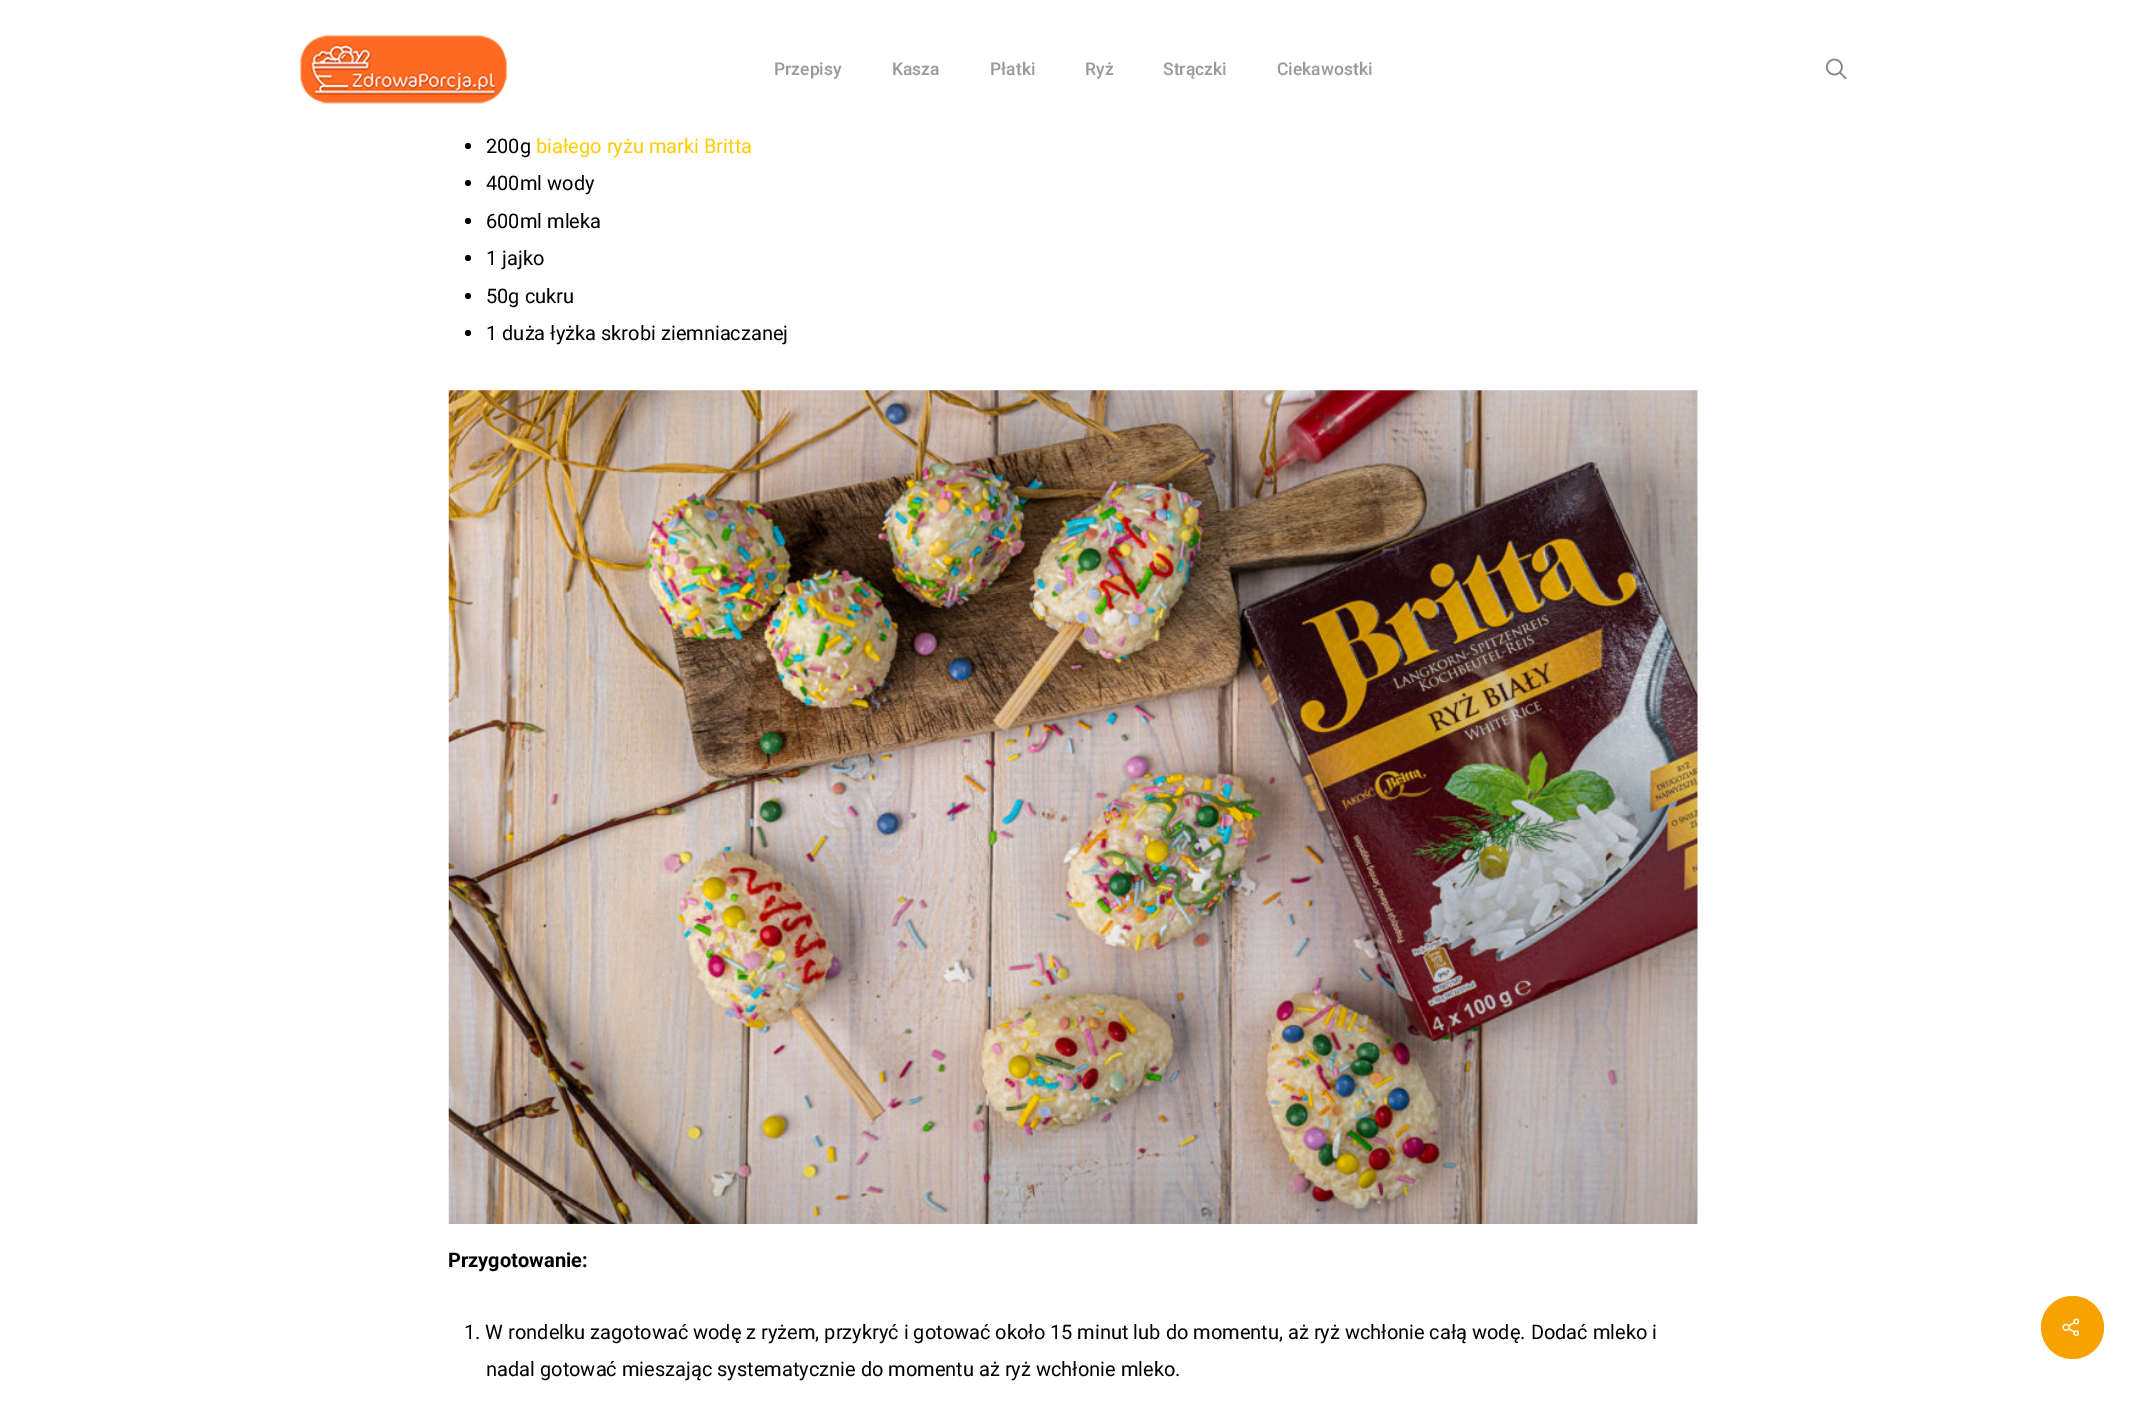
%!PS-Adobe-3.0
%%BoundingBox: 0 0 2146 1401
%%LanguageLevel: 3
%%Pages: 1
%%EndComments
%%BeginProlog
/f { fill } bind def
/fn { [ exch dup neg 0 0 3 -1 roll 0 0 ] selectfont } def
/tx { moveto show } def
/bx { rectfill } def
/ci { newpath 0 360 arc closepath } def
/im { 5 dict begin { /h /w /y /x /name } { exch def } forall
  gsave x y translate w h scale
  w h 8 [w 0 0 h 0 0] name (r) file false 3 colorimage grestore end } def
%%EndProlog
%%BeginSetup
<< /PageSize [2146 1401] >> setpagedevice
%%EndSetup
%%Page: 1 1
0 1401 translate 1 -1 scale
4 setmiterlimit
1 setgray
0 0 2146 1401 bx
(image0.raw) 300 35 207 69 im
/Roboto-Medium 17.5 fn
0.6 setgray
(Przepisy) 774 75 tx
(Kasza) 892 75 tx
(Płatki) 990 75 tx
(Ryż) 1085 75 tx
(Strączki) 1163 75 tx
(Ciekawostki) 1277 75 tx
(image1.raw) 1826 58 21 22 im
0 setgray
468 146 3 ci f
/Roboto-Regular 20 fn
(200g) 486 153 tx
1 0.8 0 setrgbcolor
(białego ryżu marki Britta) 536 153 tx
0 setgray
468 183 3 ci f
(400ml wody) 486 190 tx
468 221 3 ci f
(600ml mleka) 486 228 tx
468 258 3 ci f
(1 jajko) 486 265 tx
468 296 3 ci f
(50g cukru) 486 303 tx
468 333 3 ci f
(1 duża łyżka skrobi ziemniaczanej) 486 340 tx
(image2.raw) 448 390 1250 834 im
/Roboto-Bold 20 fn
(Przygotowanie:) 448 1267 tx
/Roboto-Regular 20 fn
(1. W rondelku zagotować wodę z ryżem, przykryć i gotować około 15 minut lub do momentu, aż ryż wchłonie całą wodę. Dodać mleko i) 464 1339 tx
(nadal gotować mieszając systematycznie do momentu aż ryż wchłonie mleko.) 486 1376 tx
0.973 0.635 0 setrgbcolor
2072.5 1327.5 31.5 ci f
(image3.raw) 2062 1318 18 19 im
showpage
%%EOF
